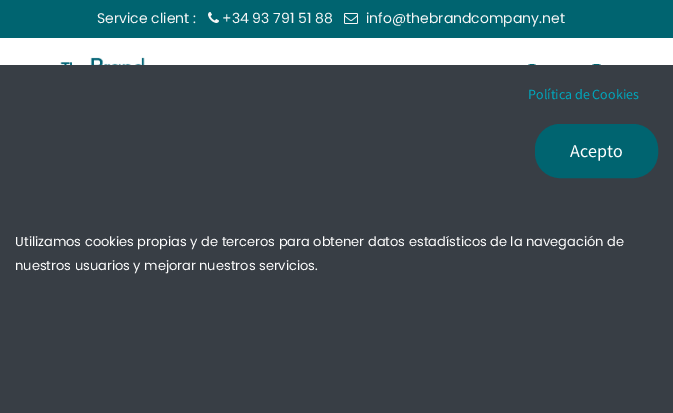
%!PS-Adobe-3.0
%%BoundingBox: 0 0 673 413
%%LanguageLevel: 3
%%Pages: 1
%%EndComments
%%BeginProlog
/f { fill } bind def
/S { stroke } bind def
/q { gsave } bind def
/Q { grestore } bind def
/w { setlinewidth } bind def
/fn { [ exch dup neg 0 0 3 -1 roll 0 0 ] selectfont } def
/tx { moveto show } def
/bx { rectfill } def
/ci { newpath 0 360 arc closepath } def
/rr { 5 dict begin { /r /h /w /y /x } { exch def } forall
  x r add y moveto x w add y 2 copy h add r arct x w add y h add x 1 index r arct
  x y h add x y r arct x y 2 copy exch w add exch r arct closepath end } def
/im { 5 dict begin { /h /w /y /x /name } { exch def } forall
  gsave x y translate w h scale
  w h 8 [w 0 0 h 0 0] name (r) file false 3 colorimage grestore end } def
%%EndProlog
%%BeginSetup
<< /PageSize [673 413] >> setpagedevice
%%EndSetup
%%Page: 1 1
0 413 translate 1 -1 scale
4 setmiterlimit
1 setgray
0 0 673 413 bx
0 0.392 0.439 setrgbcolor
0 0 673 38 bx
/Poppins-Regular 14 fn
0.965 setgray
(Service client :) 97 23 tx
(image0.raw) 208 12 11 11 im
(+34 93 791 51 88) 222 23 tx
(image1.raw) 344 13 14 11 im
(info@thebrandcompany.net) 366 23 tx
(image2.raw) 60 57 85 8 im
0 0.392 0.439 setrgbcolor
532 72 8 ci f
588 64 17 16 8 rr f
0.22 0.243 0.271 setrgbcolor
0 65 673 348 bx
/SourceSansPro-Regular 14 fn
0 0.659 0.741 setrgbcolor
(Política de Cookies) 528 99 tx
0 0.392 0.439 setrgbcolor
536.5 125.5 120 51 23.5 rr q f Q
3 w
S
/SourceSansPro-Regular 18 fn
1 setgray
(Acepto) 570 157 tx
/Poppins-Regular 13 fn
(Utilizamos cookies propias y de terceros para obtener datos estadísticos de la navegación de) 15 246 tx
(nuestros usuarios y mejorar nuestros servicios.) 15 270 tx
showpage
%%EOF
